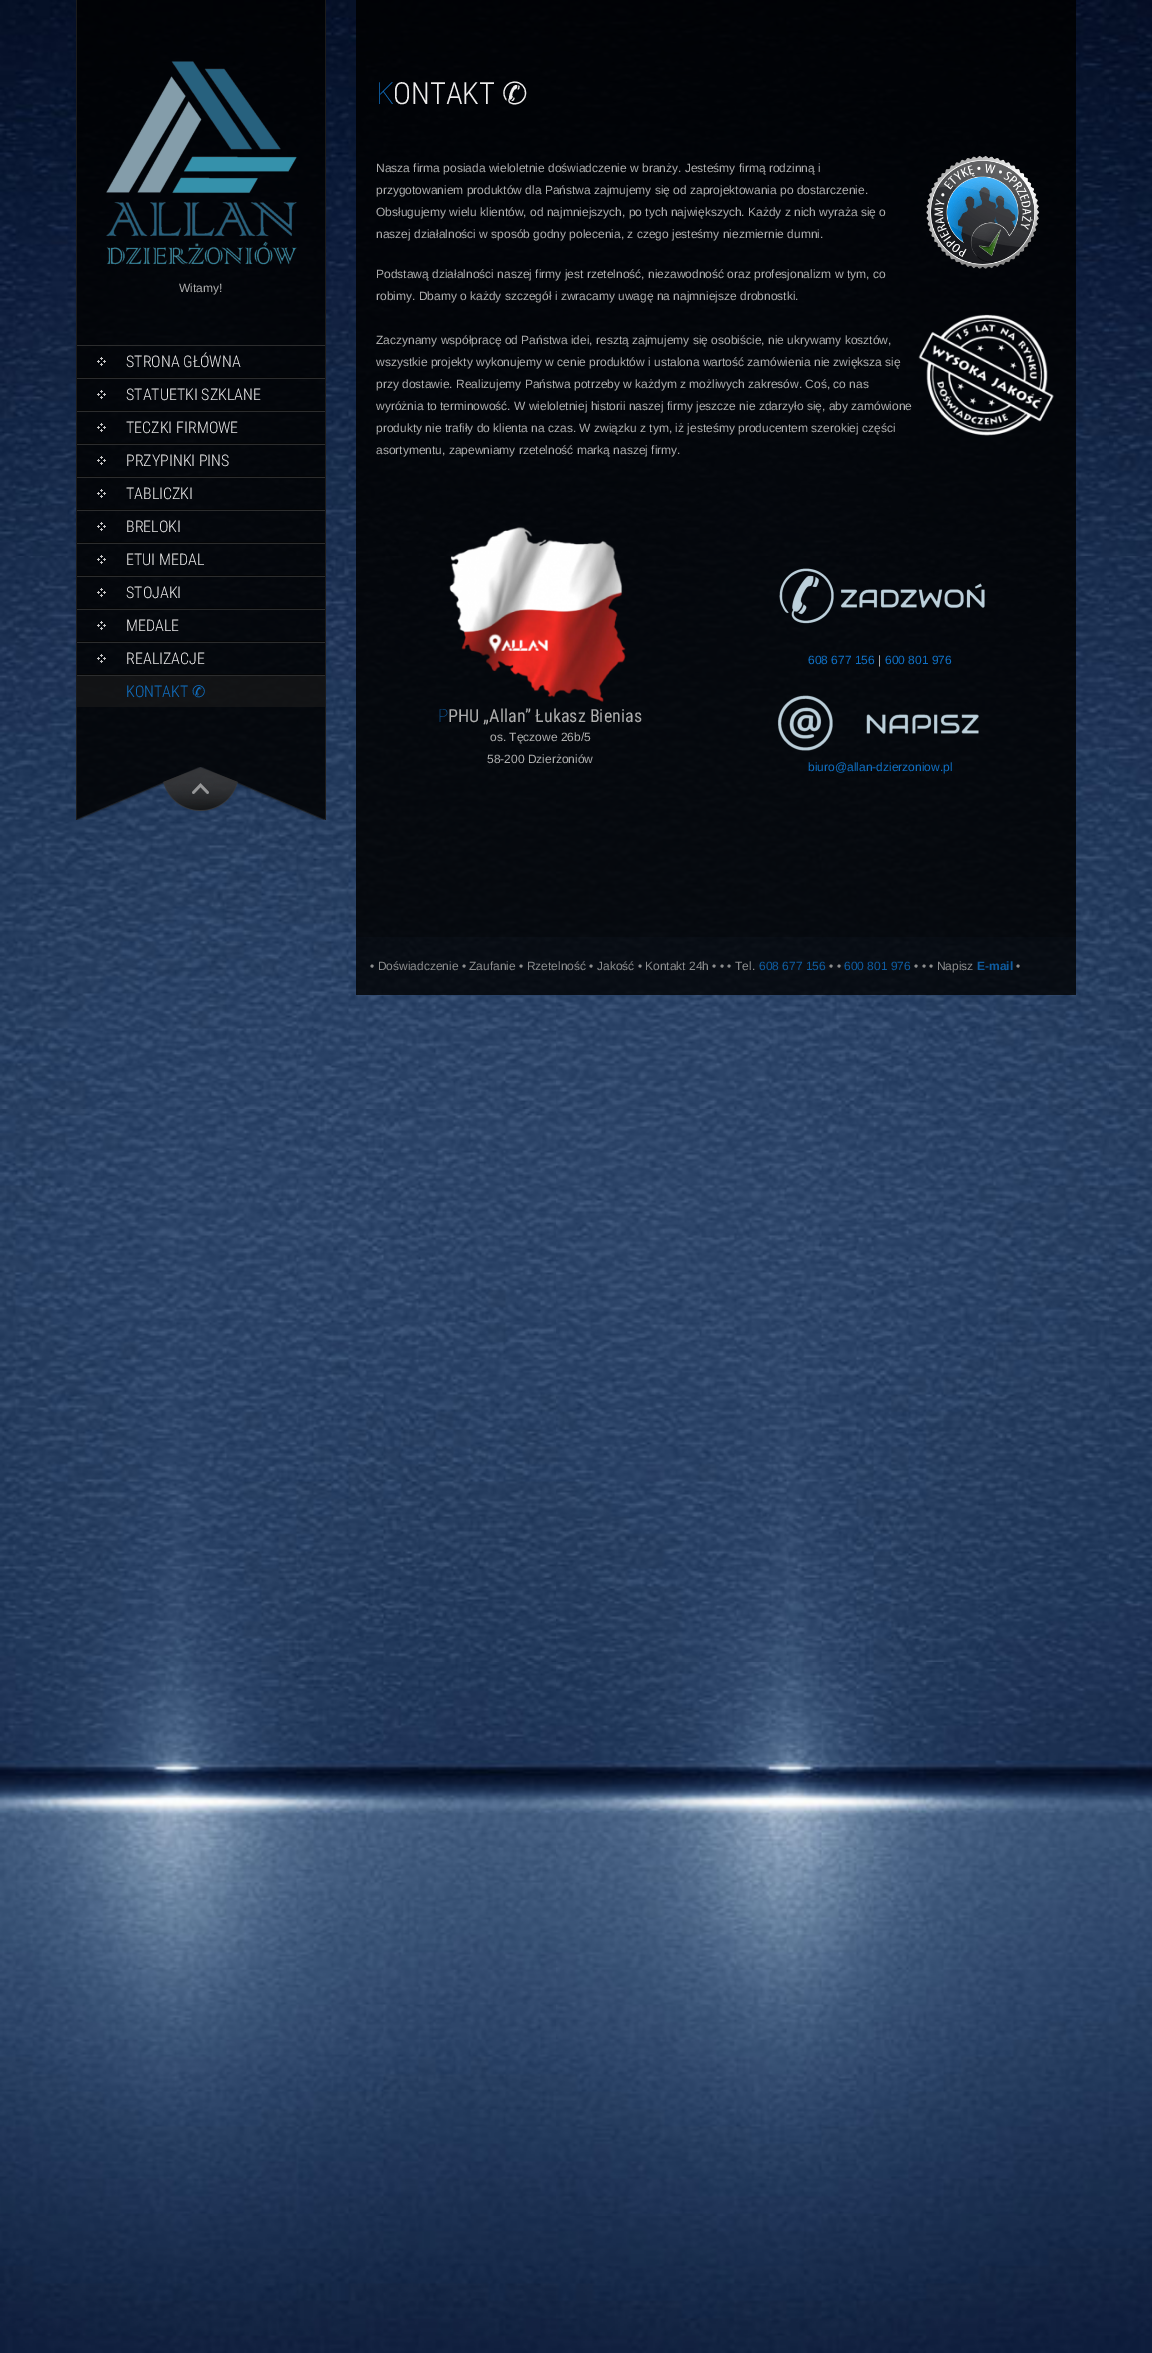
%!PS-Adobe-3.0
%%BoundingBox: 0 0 1152 2353
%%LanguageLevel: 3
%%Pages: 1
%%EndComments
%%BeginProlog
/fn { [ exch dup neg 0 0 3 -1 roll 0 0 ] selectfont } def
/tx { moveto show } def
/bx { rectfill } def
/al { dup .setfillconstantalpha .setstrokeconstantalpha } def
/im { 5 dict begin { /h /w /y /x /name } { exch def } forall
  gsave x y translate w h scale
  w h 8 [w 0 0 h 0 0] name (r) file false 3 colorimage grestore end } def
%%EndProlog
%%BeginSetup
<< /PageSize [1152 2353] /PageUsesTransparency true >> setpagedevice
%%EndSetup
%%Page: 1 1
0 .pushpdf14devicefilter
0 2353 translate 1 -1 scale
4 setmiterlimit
1 setgray
0 0 1152 2353 bx
(image0.raw) 0 0 1152 2353 im
0.106 setgray
325 0 1 820 bx
76 0 1 820 bx
0.85 al
0 setgray
77 0 248 345 bx
1 al
(image1.raw) 106 61 191 204 im
/LiberationSans-Regular 12 fn
0.682 setgray
(Witamy!) 179 292 tx
0.85 al
0 setgray
77 346 248 421 bx
1 al
0.173 0.176 0.18 setrgbcolor
77 345 248 1 bx
0.016 0.02 0.024 setrgbcolor
77 377 248 1 bx
(image2.raw) 97 357 9 9 im
/RobotoCondensed-Light 16 fn
0.933 0.929 0.929 setrgbcolor
(STRONA GŁÓWNA) 126 367 tx
0.173 0.176 0.18 setrgbcolor
77 378 248 1 bx
0.016 0.02 0.024 setrgbcolor
77 410 248 1 bx
(image3.raw) 97 390 9 9 im
0.933 0.929 0.929 setrgbcolor
(STATUETKI SZKLANE) 126 400 tx
0.173 0.176 0.18 setrgbcolor
77 411 248 1 bx
0.016 0.02 0.024 setrgbcolor
77 443 248 1 bx
(image4.raw) 97 423 9 9 im
0.933 0.929 0.929 setrgbcolor
(TECZKI FIRMOWE) 126 433 tx
0.173 0.176 0.18 setrgbcolor
77 444 248 1 bx
0.016 0.02 0.024 setrgbcolor
77 476 248 1 bx
(image5.raw) 97 456 9 9 im
0.933 0.929 0.929 setrgbcolor
(PRZYPINKI PINS) 126 466 tx
0.173 0.176 0.18 setrgbcolor
77 477 248 1 bx
0.016 0.02 0.024 setrgbcolor
77 509 248 1 bx
(image6.raw) 97 489 9 9 im
0.933 0.929 0.929 setrgbcolor
(TABLICZKI) 126 499 tx
0.173 0.176 0.18 setrgbcolor
77 510 248 1 bx
0.016 0.02 0.024 setrgbcolor
77 542 248 1 bx
(image7.raw) 97 522 9 9 im
0.933 0.929 0.929 setrgbcolor
(BRELOKI) 126 532 tx
0.173 0.176 0.18 setrgbcolor
77 543 248 1 bx
0.016 0.02 0.024 setrgbcolor
77 575 248 1 bx
(image8.raw) 97 555 9 9 im
0.933 0.929 0.929 setrgbcolor
(ETUI MEDAL) 126 565 tx
0.173 0.176 0.18 setrgbcolor
77 576 248 1 bx
0.016 0.02 0.024 setrgbcolor
77 608 248 1 bx
(image9.raw) 97 588 9 9 im
0.933 0.929 0.929 setrgbcolor
(STOJAKI) 126 598 tx
0.173 0.176 0.18 setrgbcolor
77 609 248 1 bx
0.016 0.02 0.024 setrgbcolor
77 641 248 1 bx
(image10.raw) 97 621 9 9 im
0.933 0.929 0.929 setrgbcolor
(MEDALE) 126 631 tx
0.173 0.176 0.18 setrgbcolor
77 642 248 1 bx
0.016 0.02 0.024 setrgbcolor
77 674 248 1 bx
(image11.raw) 97 654 9 9 im
0.933 0.929 0.929 setrgbcolor
(REALIZACJE) 126 664 tx
0.6 al
0.106 setgray
77 676 248 31 bx
1 al
0.173 0.176 0.18 setrgbcolor
77 675 248 1 bx
0.059 0.439 0.769 setrgbcolor
(KONTAKT) 126 697 tx
/DejaVuSans-Regular 16 fn
(✆) 192 697 tx
(image12.raw) 77 767 248 53 im
(image13.raw) 163 767 75 44 im
0.85 al
0 setgray
356 0 720 937 bx
/NotoSans-Thin 30.5 fn
1 al
0.059 0.439 0.769 setrgbcolor
(K) 376 104 tx
/RobotoCondensed-Light 30.5 fn
0.933 0.929 0.929 setrgbcolor
(ONTAKT) 393 104 tx
/DejaVuSans-Regular 30.5 fn
(✆) 502 104 tx
/LiberationSans-Regular 12 fn
0.682 setgray
(Nasza firma posiada wieloletnie doświadczenie w branży. Jesteśmy firmą rodzinną i) 376 172 tx
(image14.raw) 926 155 114 114 im
(przygotowaniem produktów dla Państwa zajmujemy się od zaprojektowania po dostarczenie.) 376 194 tx
(Obsługujemy wielu klientów, od najmniejszych, po tych największych. Każdy z nich wyraża się o) 376 216 tx
(naszej działalności w sposób godny polecenia, z czego jesteśmy niezmiernie dumni.) 376 238 tx
(Podstawą działalności naszej firmy jest rzetelność, niezawodność oraz profesjonalizm w tym, co) 376 278 tx
(robimy. Dbamy o każdy szczegół i zwracamy uwagę na najmniejsze drobnostki.) 376 300 tx
(Zaczynamy współpracę od Państwa idei, resztą zajmujemy się osobiście, nie ukrywamy kosztów,) 376 344 tx
(image15.raw) 918 314 136 122 im
(wszystkie projekty wykonujemy w cenie produktów i ustalona wartość zamówienia nie zwiększa się) 376 366 tx
(przy dostawie. Realizujemy Państwa potrzeby w każdym z możliwych zakresów. Coś, co nas) 376 388 tx
(wyróżnia to terminowość. W wieloletniej historii naszej firmy jeszcze nie zdarzyło się, aby zamówione) 376 410 tx
(produkty nie trafiły do klienta na czas. W związku z tym, iż jesteśmy producentem szerokiej części) 376 432 tx
(asortymentu, zapewniamy rzetelność marką naszej firmy.) 376 454 tx
(image16.raw) 449 527 177 176 im
/NotoSans-Thin 18 fn
0.059 0.439 0.769 setrgbcolor
(P) 438 722 tx
/RobotoCondensed-Regular 18 fn
0.682 setgray
(PHU „Allan” Łukasz Bienias) 448 722 tx
/LiberationSans-Regular 12 fn
(os. Tęczowe 26b/5) 490 741 tx
(58-200 Dzierżoniów) 487 763 tx
(image17.raw) 779 568 206 56 im
0.059 0.439 0.769 setrgbcolor
(608 677 156) 808 664 tx
0.682 setgray
(|) 878 664 tx
0.059 0.439 0.769 setrgbcolor
(600 801 976) 885 664 tx
(image18.raw) 777 695 202 56 im
(biuro@allan-dzierzoniow.pl) 808 771 tx
0.8 al
0 setgray
356 937 720 58 bx
1 al
0.553 0.557 0.561 setrgbcolor
(• Doświadczenie • Zaufanie • Rzetelność • Jakość • Kontakt 24h • • • Tel.) 370 970 tx
0.055 0.361 0.631 setrgbcolor
(608 677 156) 759 970 tx
0.553 0.557 0.561 setrgbcolor
(• •) 829 970 tx
0.055 0.361 0.631 setrgbcolor
(600 801 976) 844 970 tx
0.553 0.557 0.561 setrgbcolor
(• • • Napisz) 914 970 tx
/LiberationSans-Bold 12 fn
0.055 0.361 0.631 setrgbcolor
(E-mail) 977 970 tx
/LiberationSans-Regular 12 fn
0.553 0.557 0.561 setrgbcolor
(•) 1016 970 tx
.poppdf14devicefilter showpage
%%EOF
